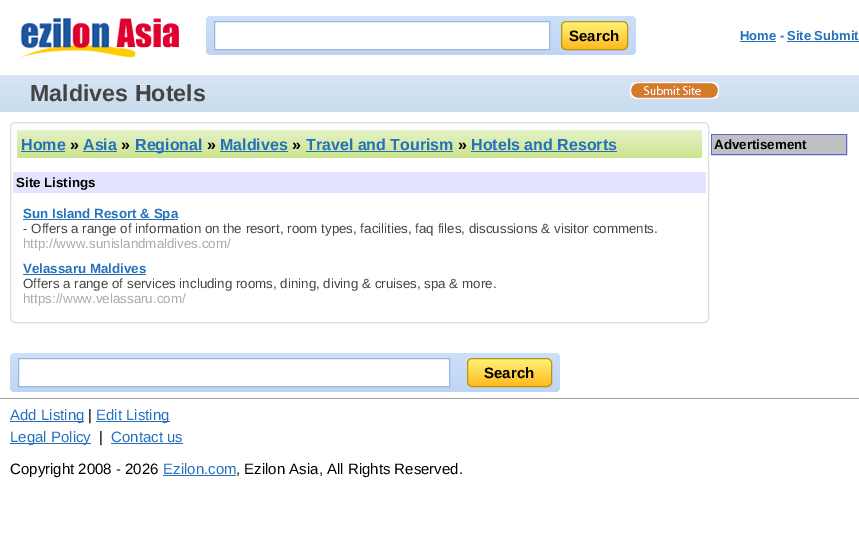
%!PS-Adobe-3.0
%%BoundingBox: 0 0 859 555
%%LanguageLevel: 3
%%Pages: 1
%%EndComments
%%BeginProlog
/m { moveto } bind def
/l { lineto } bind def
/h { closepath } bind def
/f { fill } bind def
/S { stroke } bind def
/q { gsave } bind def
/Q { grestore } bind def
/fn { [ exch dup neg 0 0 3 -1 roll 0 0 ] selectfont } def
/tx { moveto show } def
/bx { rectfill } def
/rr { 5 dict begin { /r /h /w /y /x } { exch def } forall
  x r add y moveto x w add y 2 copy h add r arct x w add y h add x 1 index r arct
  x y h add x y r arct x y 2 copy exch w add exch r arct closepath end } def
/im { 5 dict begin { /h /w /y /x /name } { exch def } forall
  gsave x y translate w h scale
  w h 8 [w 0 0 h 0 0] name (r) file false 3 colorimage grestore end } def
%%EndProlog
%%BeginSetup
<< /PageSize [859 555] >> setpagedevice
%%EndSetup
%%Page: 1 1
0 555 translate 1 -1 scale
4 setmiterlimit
1 setgray
0 0 859 555 bx
(image0.raw) 20 17 159 41 im
q 206 16 430 39 6 rr clip newpath
<< /ShadingType 2 /ColorSpace /DeviceRGB /Coords [421 16 421 55] /Extend [true true] /Function << /FunctionType 2 /Domain [0 1] /C0 [0.804 0.878 0.976] /C1 [0.749 0.835 0.953] /N 1 >> >> shfill Q
214.5 21.5 m 549.5 21.5 l 549.5 49.5 l 214.5 49.5 l h q f Q
0.596 0.718 0.878 setrgbcolor
S
q
561 21 67 29 5 rr clip newpath
q 561 22 m 628 22 l 628 49 l 561 49 l h clip newpath
<< /ShadingType 2 /ColorSpace /DeviceRGB /Coords [595 22 595 49] /Extend [true true] /Function << /FunctionType 2 /Domain [0 1] /C0 [0.996 0.953 0.471] /C1 [1 0.729 0.125] /N 1 >> >> shfill Q
Q
0.729 0.584 0.082 setrgbcolor
561.5 21.5 66 28 4.5 rr S
/LiberationSans-Bold 15 fn
0 setgray
(Search) 569 41 tx
/LiberationSans-Bold 13 fn
0.141 0.439 0.741 setrgbcolor
(Home) 740 40 tx
740 41 36 1 bx
0.345 0.408 0.816 setrgbcolor
(-) 780 40 tx
0.141 0.439 0.741 setrgbcolor
(Site Submit) 787 40 tx
787 41 72 1 bx
q 0 75 m 859 75 l 859 112 l 0 112 l h clip newpath
<< /ShadingType 2 /ColorSpace /DeviceRGB /Coords [430 75 430 112] /Extend [true true] /Function << /FunctionType 2 /Domain [0 1] /C0 [0.851 0.898 0.957] /C1 [0.78 0.863 0.929] /N 1 >> >> shfill Q
/LiberationSans-Bold 23.25 fn
0.267 setgray
(Maldives Hotels) 30 101 tx
(image1.raw) 630 82 89 17 im
0.867 setgray
10.5 122.5 698 200 4.5 rr S
q 17 130 m 702 130 l 702 158 l 17 158 l h clip newpath
<< /ShadingType 2 /ColorSpace /DeviceRGB /Coords [360 130 360 158] /Extend [true true] /Function << /FunctionType 2 /Domain [0 1] /C0 [0.898 0.949 0.776] /C1 [0.796 0.898 0.557] /N 1 >> >> shfill Q
/LiberationSans-Bold 16 fn
0.141 0.439 0.741 setrgbcolor
(Home) 21 150 tx
21 151 44 1 bx
0 setgray
(») 70 150 tx
0.141 0.439 0.741 setrgbcolor
(Asia) 83 150 tx
83 151 34 1 bx
0 setgray
(») 121 150 tx
0.141 0.439 0.741 setrgbcolor
135 151 67 1 bx
(Regional) 135 150 tx
0 setgray
(») 207 150 tx
0.141 0.439 0.741 setrgbcolor
(Maldives) 220 150 tx
220 151 68 1 bx
0 setgray
(») 292 150 tx
0.141 0.439 0.741 setrgbcolor
(Travel and Tourism) 306 150 tx
306 151 147 1 bx
0 setgray
(») 458 150 tx
0.141 0.439 0.741 setrgbcolor
(Hotels and Resorts) 471 150 tx
471 151 146 1 bx
0.89 0.894 1 setrgbcolor
13 172 693 21 bx
/LiberationSans-Bold 13.35 fn
0 setgray
(Site Listings) 16 187 tx
0.141 0.439 0.741 setrgbcolor
23 219 155 1 bx
(Sun Island Resort & Spa) 23 218 tx
/LiberationSans-Regular 13.35 fn
0.267 setgray
(- Offers a range of information on the resort, room types, facilities, faq files, discussions & visitor comments.) 23 233 tx
0.667 setgray
(http://www.sunislandmaldives.com/) 23 248 tx
/LiberationSans-Bold 13.35 fn
0.141 0.439 0.741 setrgbcolor
(Velassaru Maldives) 23 273 tx
23 274 123 1 bx
/LiberationSans-Regular 13.35 fn
0.267 setgray
(Offers a range of services including rooms, dining, diving & cruises, spa & more.) 23 288 tx
0.667 setgray
(https://www.velassaru.com/) 23 303 tx
0.345 0.408 0.816 setrgbcolor
711.5 134.5 135 20 rectstroke
0.753 setgray
712 135 134 19 bx
/LiberationSans-Bold 13.35 fn
0 setgray
(Advertisement) 714 149 tx
q 10 353 550 39 6 rr clip newpath
<< /ShadingType 2 /ColorSpace /DeviceRGB /Coords [285 353 285 392] /Extend [true true] /Function << /FunctionType 2 /Domain [0 1] /C0 [0.804 0.878 0.976] /C1 [0.749 0.835 0.953] /N 1 >> >> shfill Q
1 setgray
18.5 358.5 m 449.5 358.5 l 449.5 386.5 l 18.5 386.5 l h q f Q
0.596 0.718 0.878 setrgbcolor
S
q
467 358 85 29 5 rr clip newpath
q 467 359 m 552 359 l 552 386 l 467 386 l h clip newpath
<< /ShadingType 2 /ColorSpace /DeviceRGB /Coords [510 359 510 386] /Extend [true true] /Function << /FunctionType 2 /Domain [0 1] /C0 [0.996 0.953 0.471] /C1 [1 0.729 0.125] /N 1 >> >> shfill Q
Q
0.729 0.584 0.082 setrgbcolor
467.5 358.5 84 28 4.5 rr S
/LiberationSans-Bold 15 fn
0 setgray
(Search) 484 378 tx
0.624 setgray
0 398 859 1 bx
0.141 0.439 0.741 setrgbcolor
10 421 74 1 bx
/LiberationSans-Regular 15 fn
(Add Listing) 10 420 tx
0 setgray
(|) 88 420 tx
0.141 0.439 0.741 setrgbcolor
96 421 74 1 bx
(Edit Listing) 96 420 tx
10 443 81 1 bx
(Legal Policy) 10 442 tx
0 setgray
(|) 99 442 tx
0.141 0.439 0.741 setrgbcolor
(Contact us) 111 442 tx
111 443 72 1 bx
0 setgray
(Copyright 2008 - 2026) 10 474 tx
0.141 0.439 0.741 setrgbcolor
(Ezilon.com) 163 474 tx
163 475 73 1 bx
0 setgray
(, Ezilon Asia, All Rights Reserved.) 236 474 tx
showpage
%%EOF
